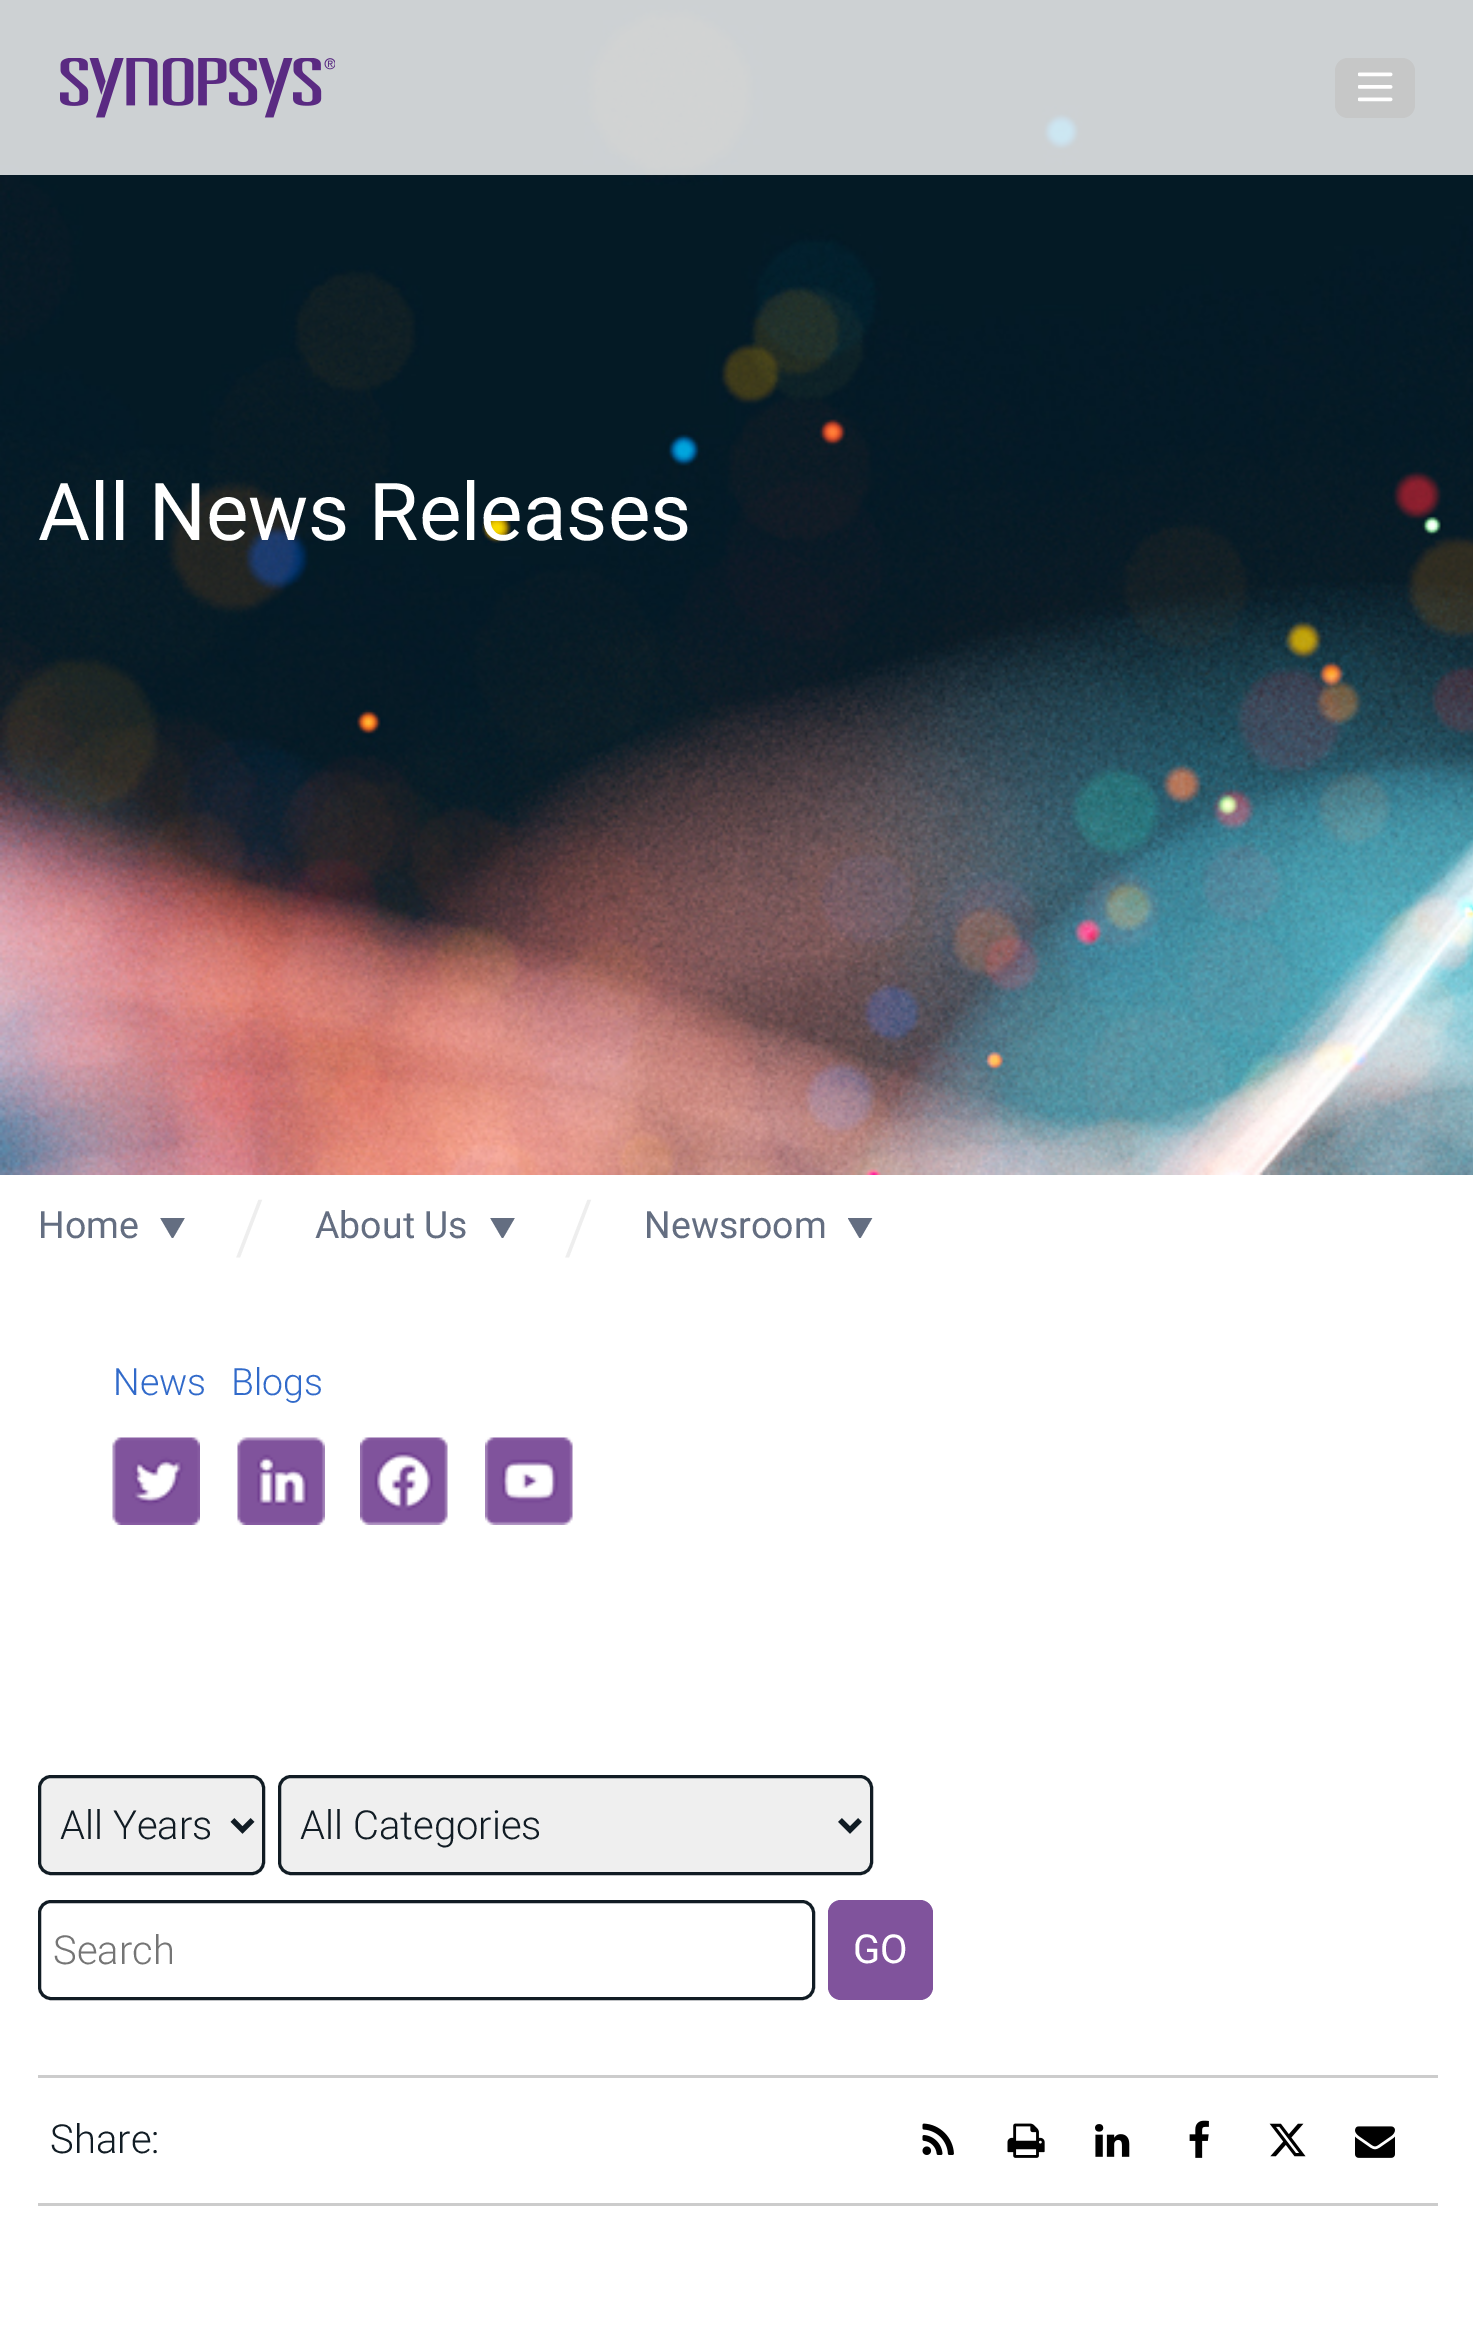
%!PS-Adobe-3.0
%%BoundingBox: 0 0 1473 2346
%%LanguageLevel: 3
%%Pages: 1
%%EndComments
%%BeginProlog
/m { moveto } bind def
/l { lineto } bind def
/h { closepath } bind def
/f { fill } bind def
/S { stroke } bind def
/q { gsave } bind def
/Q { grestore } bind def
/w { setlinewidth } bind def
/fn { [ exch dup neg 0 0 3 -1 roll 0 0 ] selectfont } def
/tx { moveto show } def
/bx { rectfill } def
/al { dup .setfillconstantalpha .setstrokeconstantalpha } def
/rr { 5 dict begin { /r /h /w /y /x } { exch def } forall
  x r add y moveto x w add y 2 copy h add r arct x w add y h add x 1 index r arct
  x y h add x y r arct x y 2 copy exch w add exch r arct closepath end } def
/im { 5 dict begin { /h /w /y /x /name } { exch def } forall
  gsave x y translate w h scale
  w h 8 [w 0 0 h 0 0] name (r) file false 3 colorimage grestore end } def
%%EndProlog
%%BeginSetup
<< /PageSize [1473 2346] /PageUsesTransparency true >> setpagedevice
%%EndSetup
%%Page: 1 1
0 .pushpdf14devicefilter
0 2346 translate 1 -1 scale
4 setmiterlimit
1 setgray
0 0 1473 2346 bx
(image2.raw) 0 0 1473 1175 im
0.8 al
0 0 1473 175 bx
1 al
(image0.raw) 60 58 275 60 im
0.776 0.78 0.78 setrgbcolor
1335 58 80 60 13 rr f
(image1.raw) 1358 72 35 30 im
/Roboto-Regular 80 fn
1 setgray
(All News Releases) 38 540 tx
/Roboto-Regular 37.5 fn
0.392 0.431 0.506 setrgbcolor
(Home) 38 1238 tx
q
160 1218 25 20 rectclip
172.5 1239 m 160 1217.5 l 185 1217.5 l h eofill
Q
/Roboto-Light 75 fn
0.933 setgray
(/) 235 1253 tx
/Roboto-Regular 37.5 fn
0.392 0.431 0.506 setrgbcolor
(About Us) 315 1238 tx
q
490 1218 25 20 rectclip
502.5 1239 m 490 1217.5 l 515 1217.5 l h eofill
Q
/Roboto-Light 75 fn
0.933 setgray
(/) 564 1253 tx
/Roboto-Regular 37.5 fn
0.392 0.431 0.506 setrgbcolor
(Newsroom) 644 1238 tx
q
848 1218 25 20 rectclip
860 1239 m 847.5 1217.5 l 872.5 1217.5 l h eofill
Q
/Roboto-Light 37.5 fn
0.192 0.416 0.792 setrgbcolor
(News) 113 1395 tx
(Blogs) 231 1395 tx
(image3.raw) 112 1437 88 88 im
(image4.raw) 237 1437 88 88 im
(image5.raw) 360 1437 88 88 im
(image6.raw) 485 1437 88 88 im
0.937 setgray
39.5 1776.5 224 97 11.5 rr q f Q
0.067 0.11 0.141 setrgbcolor
3 w
S
5 w
232.5 1820 m 242.5 1830 l 252.5 1820 l S
/Roboto-Light 40 fn
(All Years) 60 1839 tx
0.937 setgray
279.5 1776.5 592 97 11.5 rr q f Q
0.067 0.11 0.141 setrgbcolor
3 w
S
5 w
840 1820 m 850 1830 l 860 1820 l S
(All Categories) 300 1839 tx
3 w
39.5 1901.5 774 97 11.5 rr S
0.459 setgray
(Search) 53 1964 tx
0.502 0.325 0.612 setrgbcolor
828 1900 105 100 13 rr f
/Roboto-Regular 40 fn
1 setgray
(GO) 853 1963 tx
0.8 setgray
38 2075 1400 3 bx
38 2203 1400 3 bx
/Roboto-Light 40 fn
0.067 0.11 0.141 setrgbcolor
(Share:) 50 2153 tx
(image7.raw) 922 2123 32 32 im
(image8.raw) 1007 2123 38 35 im
(image9.raw) 1095 2124 35 33 im
(image10.raw) 1189 2120 20 38 im
(image11.raw) 1269 2123 37 34 im
(image12.raw) 1355 2126 40 32 im
.poppdf14devicefilter showpage
%%EOF
